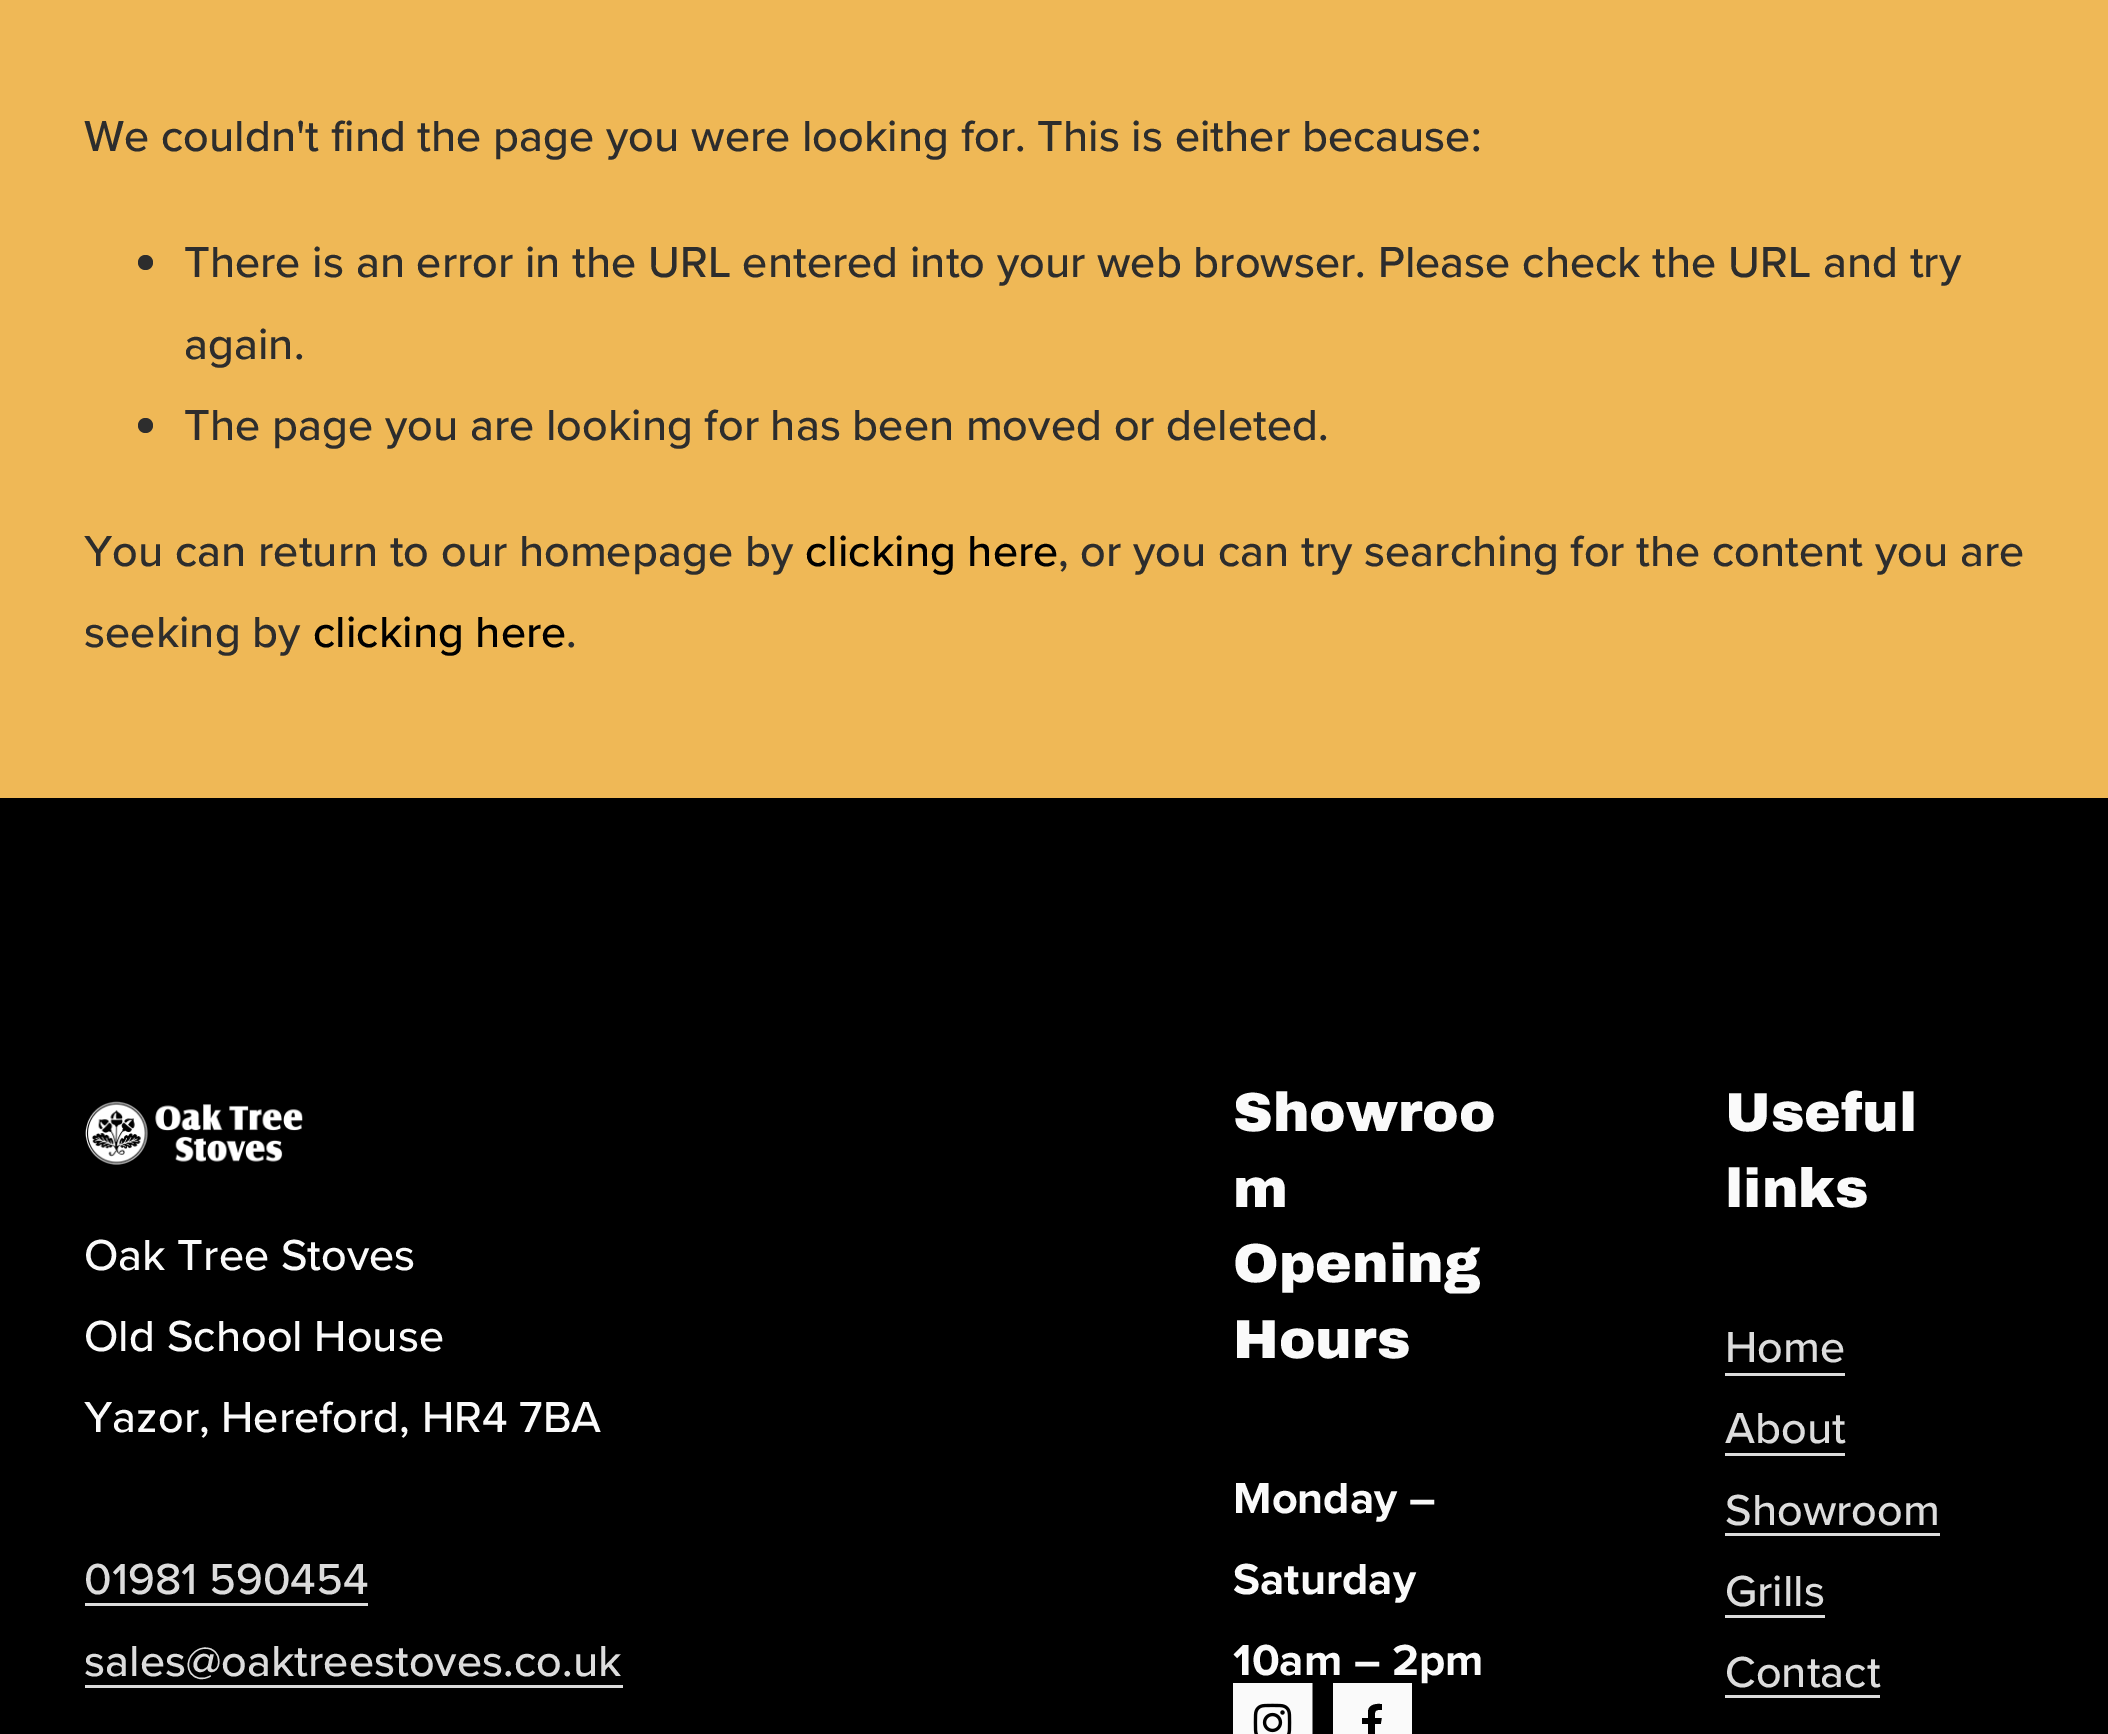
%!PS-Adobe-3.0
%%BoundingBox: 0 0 2108 1734
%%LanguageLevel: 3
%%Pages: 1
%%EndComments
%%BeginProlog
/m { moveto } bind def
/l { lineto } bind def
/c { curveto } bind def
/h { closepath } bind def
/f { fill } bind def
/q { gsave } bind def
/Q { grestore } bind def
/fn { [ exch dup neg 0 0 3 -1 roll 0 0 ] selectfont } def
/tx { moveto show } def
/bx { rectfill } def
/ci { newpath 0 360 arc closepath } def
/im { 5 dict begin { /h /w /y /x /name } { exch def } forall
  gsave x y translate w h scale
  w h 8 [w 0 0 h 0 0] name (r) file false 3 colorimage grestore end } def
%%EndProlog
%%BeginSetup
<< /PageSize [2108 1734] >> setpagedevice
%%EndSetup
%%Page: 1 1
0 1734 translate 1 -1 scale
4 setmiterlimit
0.937 0.722 0.337 setrgbcolor
0 0 2108 1734 bx
/ProximaNova-Medium 45.05 fn
0.176 setgray
(We couldn't find the page you were looking for. This is either because:) 84 151 tx
145.5 262.5 7.5 ci f
(There is an error in the URL entered into your web browser. Please check the URL and try) 184 277 tx
(again.) 184 359 tx
145.5 425.5 7.5 ci f
(The page you are looking for has been moved or deleted.) 184 440 tx
(You can return to our homepage by) 84 566 tx
0 setgray
(clicking here) 805 566 tx
0.176 setgray
(, or you can try searching for the) 1058 566 tx
(content you are) 1712 566 tx
(seeking by) 84 647 tx
0 setgray
(clicking here) 313 647 tx
0.176 setgray
(.) 566 647 tx
0 setgray
0 798 2108 936 bx
(image0.raw) 85 1101 218 64 im
/ArchivoBlack-Black 55 fn
0.98 setgray
(Showroo) 1233 1131 tx
(m) 1233 1207 tx
(Opening) 1233 1282 tx
(Hours) 1233 1358 tx
/ProximaNova-Bold 45.05 fn
(Monday –) 1233 1513 tx
(Saturday) 1233 1594 tx
(10am – 2pm) 1233 1675 tx
/ArchivoBlack-Black 55 fn
(Useful) 1725 1131 tx
(links) 1725 1207 tx
/ProximaNova-Medium 45.05 fn
0.863 setgray
(Home) 1725 1362 tx
1725 1373 120 3 bx
(About) 1725 1443 tx
1725 1453 120 3 bx
(Showroom) 1725 1525 tx
1725 1533 215 3 bx
(Grills) 1725 1606 tx
1725 1615 100 3 bx
(Contact) 1725 1687 tx
1725 1695 155 3 bx
0.98 setgray
(Oak Tree Stoves) 84 1270 tx
(Old School House) 84 1351 tx
(Yazor, Hereford, HR4 7BA) 84 1432 tx
0.863 setgray
(01981 590454) 84 1594 tx
85 1603 283 3 bx
(sales@oaktreestoves.co.uk) 84 1676 tx
85 1685 538 3 bx
(image1.raw) 1233 1683 80 51 im
q
1333 1683 80 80 rectclip
0.98 setgray
1332 1682 m 1332 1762 l 1412 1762 l 1412 1682 l h 1382 1710 m 1375 1710 1375 1711 1375 1718 c 1382 1718 l 1381 1724 l 1375 1724 l 1375 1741 l 1368 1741 l 1368 1724 l 1362 1724 l 1362 1718 l 1368 1718 l 1368 1710 l 1369 1704 1377 1703 1382 1704 c h f
Q
showpage
%%EOF
